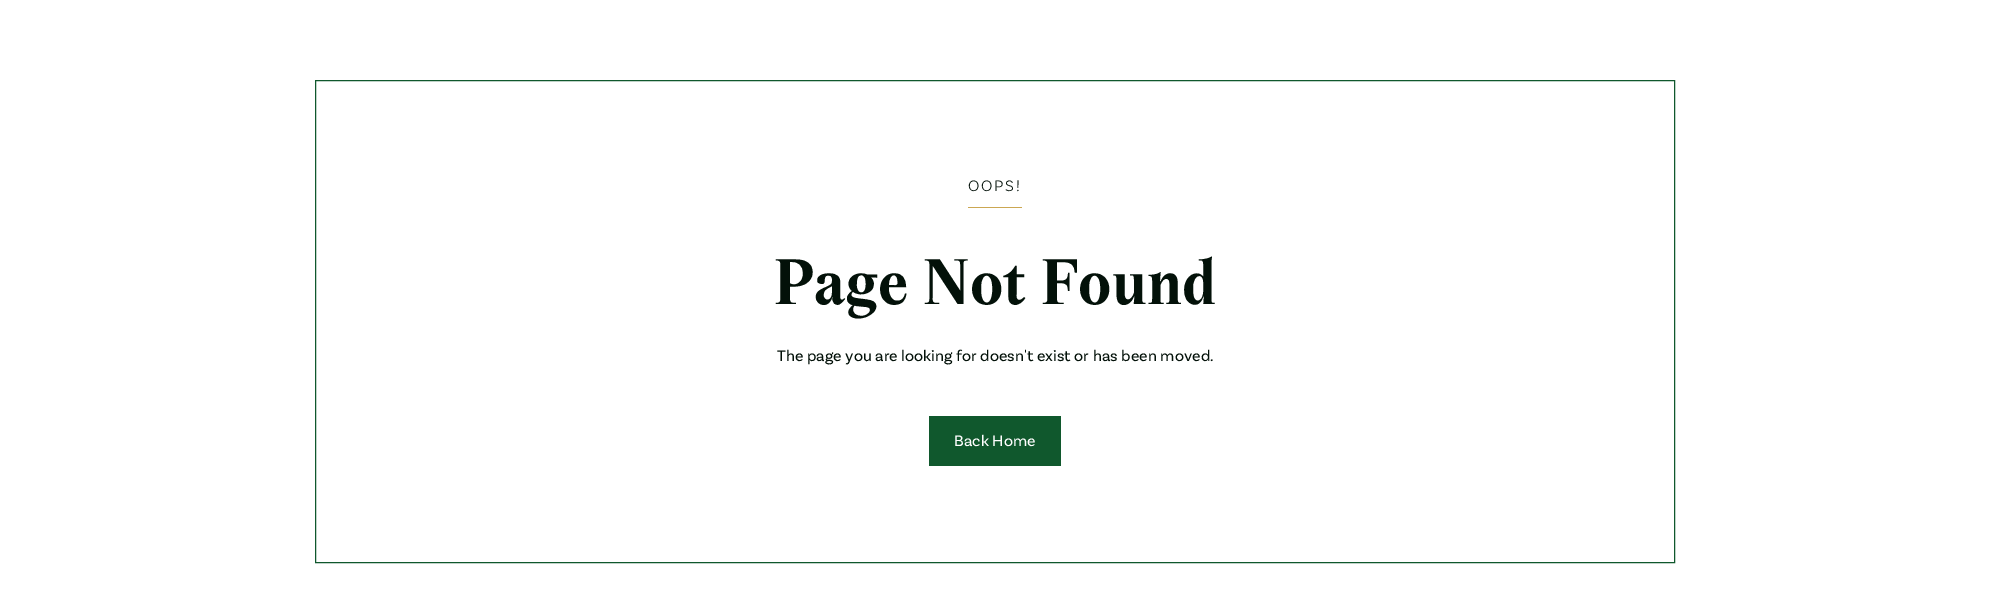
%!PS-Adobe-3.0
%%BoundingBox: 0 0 1990 612
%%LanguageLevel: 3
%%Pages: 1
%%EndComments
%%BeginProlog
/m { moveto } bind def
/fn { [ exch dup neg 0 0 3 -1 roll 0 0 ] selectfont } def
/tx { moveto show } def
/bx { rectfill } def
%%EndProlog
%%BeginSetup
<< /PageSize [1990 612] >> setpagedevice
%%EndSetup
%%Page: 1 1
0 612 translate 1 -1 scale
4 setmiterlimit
1 setgray
0 0 1990 612 bx
0.063 0.345 0.176 setrgbcolor
315.5 80.5 1359 482 rectstroke
/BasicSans-Light 16 fn
0.012 0.067 0.035 setrgbcolor
968 191 m 1.75 0 (OOPS!) ashow
0.796 0.655 0.322 setrgbcolor
968 207 54 1 bx
/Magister-Bold 64 fn
0.012 0.067 0.035 setrgbcolor
(Page Not Found) 774 304 tx
/BasicSans-Regular 16 fn
(The page you are looking for doesn't exist or has been moved.) 777 361 tx
0.063 0.345 0.176 setrgbcolor
929 416 132 50 bx
1 setgray
(Back Home) 954 446 tx
showpage
%%EOF
